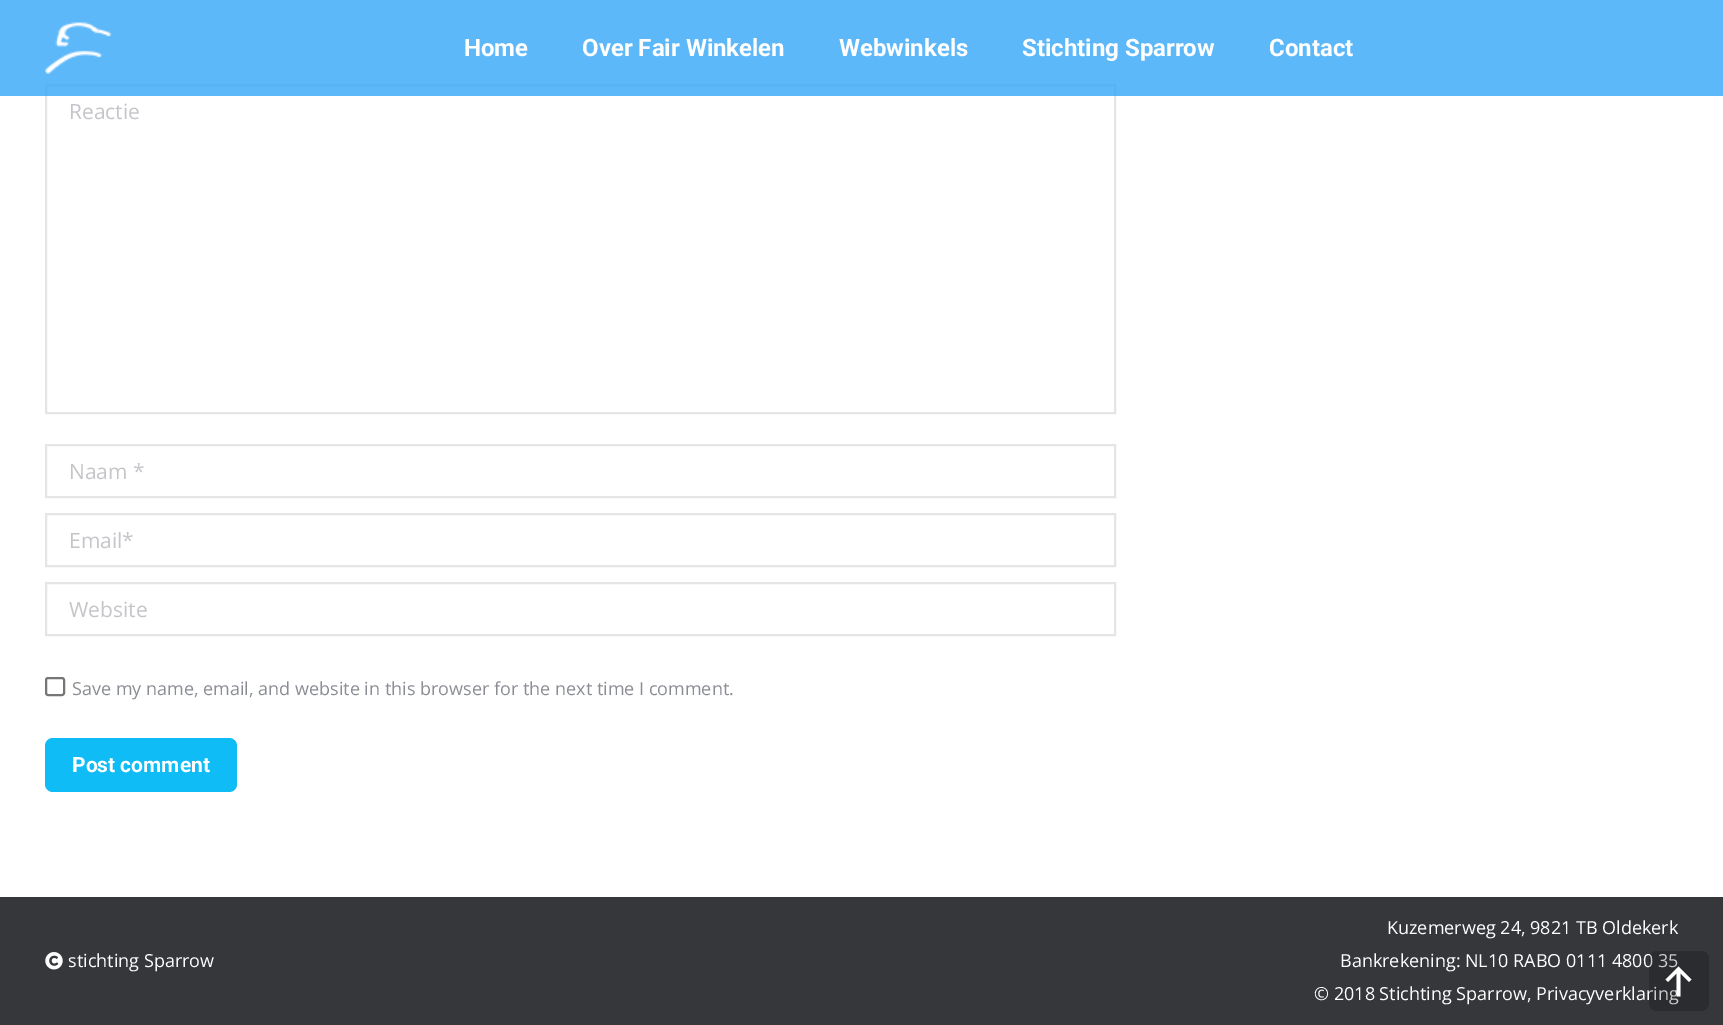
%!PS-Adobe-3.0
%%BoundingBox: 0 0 1723 1025
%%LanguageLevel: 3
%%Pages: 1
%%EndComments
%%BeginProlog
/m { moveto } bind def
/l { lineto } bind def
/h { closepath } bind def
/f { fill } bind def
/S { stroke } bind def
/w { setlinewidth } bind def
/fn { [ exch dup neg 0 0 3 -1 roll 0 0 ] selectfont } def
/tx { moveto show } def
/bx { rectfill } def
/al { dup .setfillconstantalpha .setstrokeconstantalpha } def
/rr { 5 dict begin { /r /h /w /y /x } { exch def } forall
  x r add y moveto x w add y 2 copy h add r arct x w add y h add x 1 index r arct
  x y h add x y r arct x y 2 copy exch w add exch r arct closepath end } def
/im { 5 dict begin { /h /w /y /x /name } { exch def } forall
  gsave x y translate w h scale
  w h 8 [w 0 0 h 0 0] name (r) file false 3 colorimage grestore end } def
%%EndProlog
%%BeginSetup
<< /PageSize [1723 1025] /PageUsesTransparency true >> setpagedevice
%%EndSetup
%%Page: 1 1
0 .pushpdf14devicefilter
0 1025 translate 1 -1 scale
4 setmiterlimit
1 setgray
0 0 1723 1025 bx
0.898 setgray
2 w
46 85 1069 328 rectstroke
0.8 al
0.204 0.651 0.969 setrgbcolor
0 0 1723 96 bx
1 al
(image0.raw) 45 22 66 52 im
/Roboto-Bold 24 fn
1 setgray
(Home) 464 56 tx
(Over Fair Winkelen) 582 56 tx
(Webwinkels) 839 56 tx
(Stichting Sparrow) 1022 56 tx
(Contact) 1269 56 tx
/OpenSans-Regular 21 fn
0.769 0.773 0.788 setrgbcolor
(Reactie) 69 119 tx
0.898 setgray
46 445 1069 52 rectstroke
0.769 0.773 0.788 setrgbcolor
(Naam *) 69 479 tx
0.898 setgray
46 514 1069 52 rectstroke
0.769 0.773 0.788 setrgbcolor
(Email*) 69 548 tx
0.898 setgray
46 583 1069 52 rectstroke
0.769 0.773 0.788 setrgbcolor
(Website) 69 617 tx
0.463 setgray
46 678 18 17 2 rr S
/OpenSans-Regular 18 fn
0.545 0.553 0.58 setrgbcolor
(Save my name, email, and website in this browser for the next time I comment.) 72 695 tx
0.059 0.737 0.961 setrgbcolor
45 738 192 54 8 rr f
/Roboto-Bold 21 fn
1 setgray
(Post comment) 72 772 tx
0.208 0.216 0.231 setrgbcolor
0 897 1723 128 bx
(image1.raw) 45 952 18 18 im
/OpenSans-Regular 18 fn
1 setgray
(stichting Sparrow) 68 967 tx
(Kuzemerweg 24, 9821 TB Oldekerk) 1387 934 tx
(Bankrekening: NL10 RABO 0111 4800 35) 1340 967 tx
(© 2018 Stichting Sparrow, Privacyverklaring) 1314 1000 tx
0.2 al
0 setgray
1649 951 60 60 8 rr f
1 al
1 setgray
1665.5 979.5 m 1668 982 l 1676.5 973.5 l 1676.5 996.5 l 1680.5 996.5 l 1680.5 973.5 l 1689 982 l 1691.5 979.5 l 1678.5 966.5 l h f
.poppdf14devicefilter showpage
%%EOF
